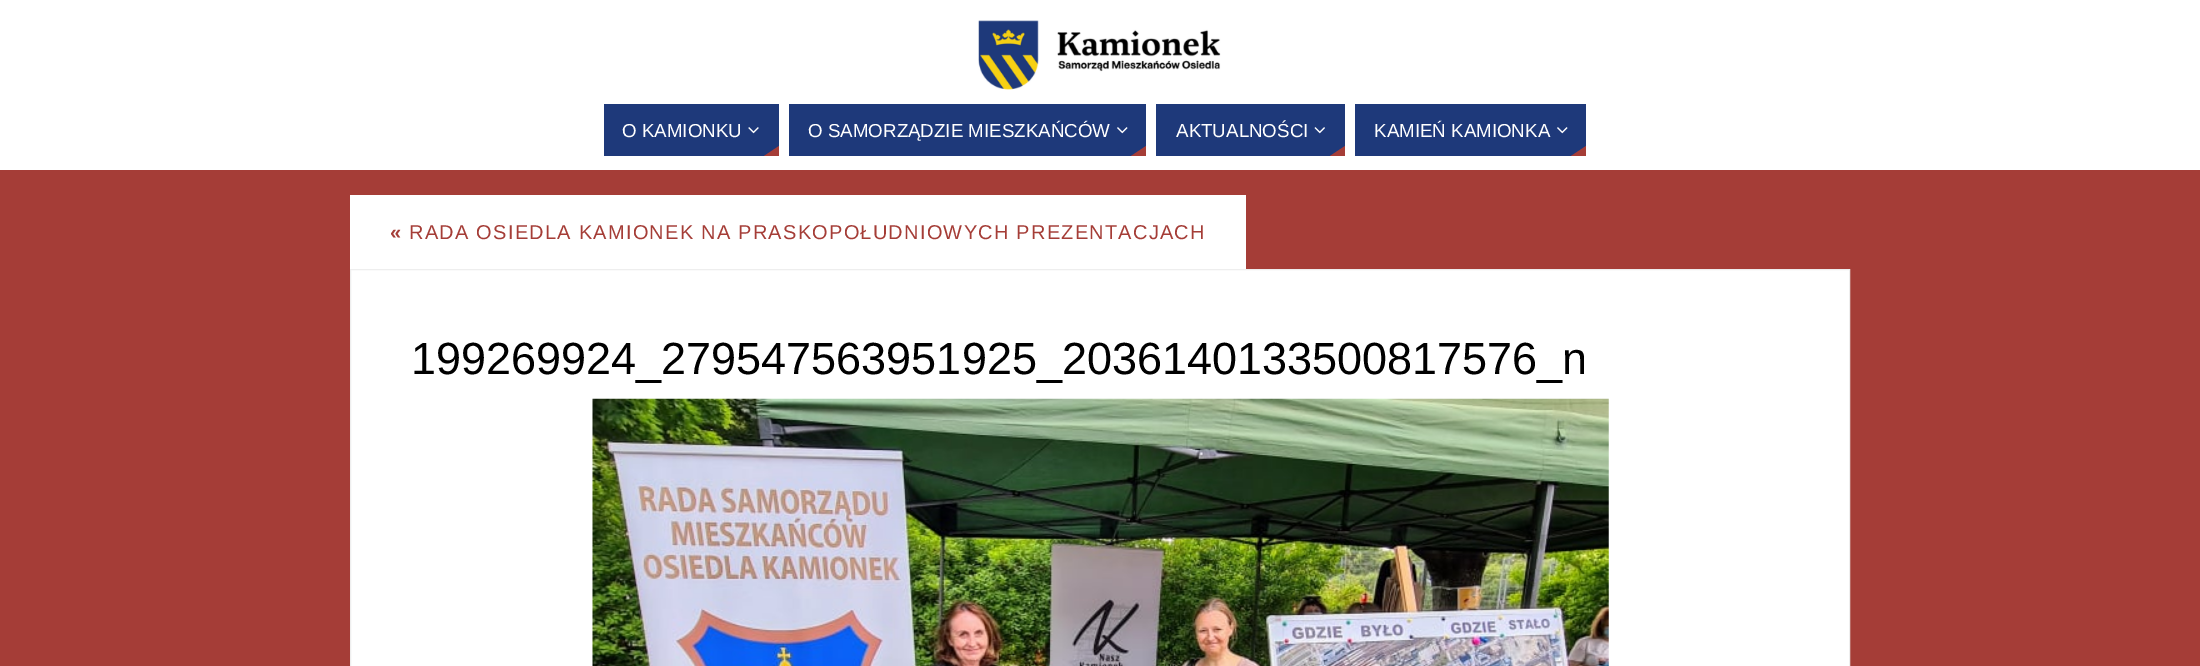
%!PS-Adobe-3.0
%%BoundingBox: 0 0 2200 666
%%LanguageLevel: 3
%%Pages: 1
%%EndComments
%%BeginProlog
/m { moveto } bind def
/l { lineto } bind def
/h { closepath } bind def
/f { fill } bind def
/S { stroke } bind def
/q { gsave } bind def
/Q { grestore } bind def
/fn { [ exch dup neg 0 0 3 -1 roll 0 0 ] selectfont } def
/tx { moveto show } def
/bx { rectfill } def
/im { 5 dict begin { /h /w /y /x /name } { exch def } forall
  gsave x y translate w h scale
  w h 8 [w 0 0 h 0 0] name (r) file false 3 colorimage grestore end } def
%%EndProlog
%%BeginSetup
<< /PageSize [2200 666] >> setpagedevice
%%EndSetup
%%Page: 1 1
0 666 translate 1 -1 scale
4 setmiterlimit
0.647 0.239 0.216 setrgbcolor
0 0 2200 666 bx
1 setgray
0 0 2200 170 bx
(image0.raw) 978 20 243 70 im
0.118 0.224 0.478 setrgbcolor
604 104 175 52 bx
/LiberationSans-Regular 18.75 fn
1 setgray
(O KAMIONKU) 622 137 tx
(image1.raw) 748 127 11 7 im
0.647 0.239 0.216 setrgbcolor
779 156 m 764 156 l 779 146 l h f
0.118 0.224 0.478 setrgbcolor
789 104 357 52 bx
1 setgray
(O SAMORZĄDZIE MIESZKAŃCÓW) 808 137 tx
(image2.raw) 1117 127 11 7 im
0.647 0.239 0.216 setrgbcolor
1146 156 m 1131 156 l 1146 146 l h f
0.118 0.224 0.478 setrgbcolor
1156 104 189 52 bx
1 setgray
(AKTUALNOŚCI) 1176 137 tx
(image3.raw) 1314 127 11 7 im
0.647 0.239 0.216 setrgbcolor
1345 156 m 1330 156 l 1345 146 l h f
0.118 0.224 0.478 setrgbcolor
1355 104 231 52 bx
1 setgray
(KAMIEŃ KAMIONKA) 1374 137 tx
(image2.raw) 1557 127 11 7 im
0.647 0.239 0.216 setrgbcolor
1586 156 m 1571 156 l 1586 146 l h f
1 setgray
350 195 896 74 bx
/LiberationSans-Bold 20 fn
0.647 0.239 0.216 setrgbcolor
390 239 m 1.25 0 («) ashow
/LiberationSans-Regular 20 fn
409 239 m 1.25 0 (RADA OSIEDLA KAMIONEK NA PRASKOPOŁUDNIOWYCH PREZENTACJACH) ashow
1 setgray
350.5 269.5 m 1849.5 269.5 l 1849.5 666.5 l 350.5 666.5 l h q f Q
0.933 setgray
S
/LiberationSans-Regular 45 fn
0 setgray
(199269924_279547563951925_2036140133500817576_n) 411 374 tx
(image4.raw) 592 398 1017 268 im
showpage
%%EOF
